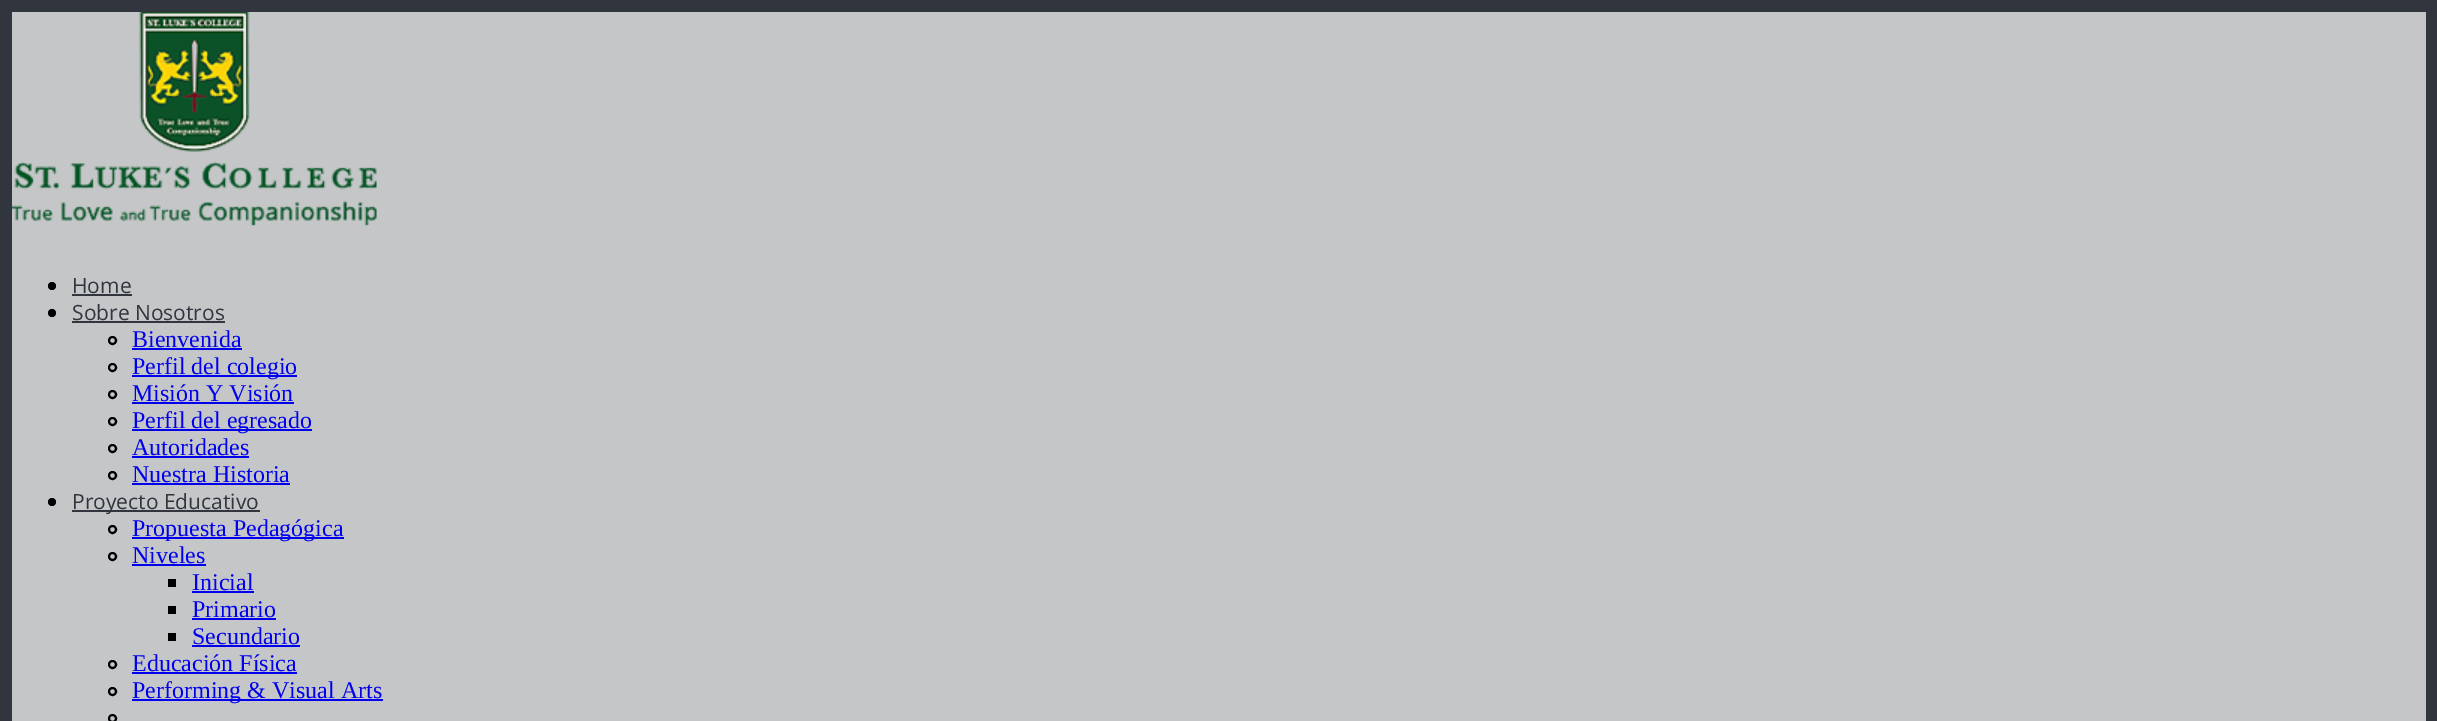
%!PS-Adobe-3.0
%%BoundingBox: 0 0 2437 721
%%LanguageLevel: 3
%%Pages: 1
%%EndComments
%%BeginProlog
/f { fill } bind def
/S { stroke } bind def
/w { setlinewidth } bind def
/fn { [ exch dup neg 0 0 3 -1 roll 0 0 ] selectfont } def
/tx { moveto show } def
/bx { rectfill } def
/ci { newpath 0 360 arc closepath } def
/im { 5 dict begin { /h /w /y /x /name } { exch def } forall
  gsave x y translate w h scale
  w h 8 [w 0 0 h 0 0] name (r) file false 3 colorimage grestore end } def
%%EndProlog
%%BeginSetup
<< /PageSize [2437 721] >> setpagedevice
%%EndSetup
%%Page: 1 1
0 721 translate 1 -1 scale
4 setmiterlimit
0.192 0.208 0.239 setrgbcolor
0 0 2437 721 bx
0.769 0.776 0.784 setrgbcolor
12 12 2414 709 bx
(image0.raw) 12 12 365 214 im
0 setgray
52 286 4 ci f
/OpenSans-Regular 21 fn
0.192 0.208 0.239 setrgbcolor
(Home) 72 293 tx
72 294 60 2 bx
0 setgray
52 313 4 ci f
0.192 0.208 0.239 setrgbcolor
(Sobre Nosotros) 72 320 tx
72 321 153 2 bx
0 setgray
2 w
112.5 340.5 3.5 ci S
/LiberationSerif-Regular 24 fn
0 0 0.933 setrgbcolor
(Bienvenida) 132 347 tx
132 348 110 2 bx
0 setgray
112.5 367.5 3.5 ci S
0 0 0.933 setrgbcolor
132 375 165 2 bx
(Perfil del colegio) 132 374 tx
0 setgray
112.5 394.5 3.5 ci S
0 0 0.933 setrgbcolor
(Misión Y Visión) 132 401 tx
132 402 162 2 bx
0 setgray
112.5 421.5 3.5 ci S
0 0 0.933 setrgbcolor
132 429 180 2 bx
(Perfil del egresado) 132 428 tx
0 setgray
112.5 448.5 3.5 ci S
0 0 0.933 setrgbcolor
(Autoridades) 132 455 tx
132 456 117 2 bx
0 setgray
112.5 475.5 3.5 ci S
0 0 0.933 setrgbcolor
(Nuestra Historia) 132 482 tx
132 483 158 2 bx
0 setgray
52 502 4 ci f
0.192 0.208 0.239 setrgbcolor
72 510 188 2 bx
/OpenSans-Regular 21 fn
(Proyecto Educativo) 72 509 tx
0 setgray
112.5 529.5 3.5 ci S
0 0 0.933 setrgbcolor
132 537 212 2 bx
/LiberationSerif-Regular 24 fn
(Propuesta Pedagógica) 132 536 tx
0 setgray
112.5 556.5 3.5 ci S
0 0 0.933 setrgbcolor
(Niveles) 132 563 tx
132 564 74 2 bx
0 setgray
168 579 8 8 bx
0 0 0.933 setrgbcolor
(Inicial) 192 590 tx
192 591 62 2 bx
0 setgray
168 606 8 8 bx
0 0 0.933 setrgbcolor
(Primario) 192 617 tx
192 618 84 2 bx
0 setgray
168 633 8 8 bx
0 0 0.933 setrgbcolor
(Secundario) 192 644 tx
192 645 108 2 bx
0 setgray
112.5 664.5 3.5 ci S
0 0 0.933 setrgbcolor
(Educación Física) 132 671 tx
132 672 165 2 bx
0 setgray
112.5 691.5 3.5 ci S
0 0 0.933 setrgbcolor
132 699 251 2 bx
(Performing & Visual Arts) 132 698 tx
0 setgray
112.5 718.5 3.5 ci S
showpage
%%EOF
